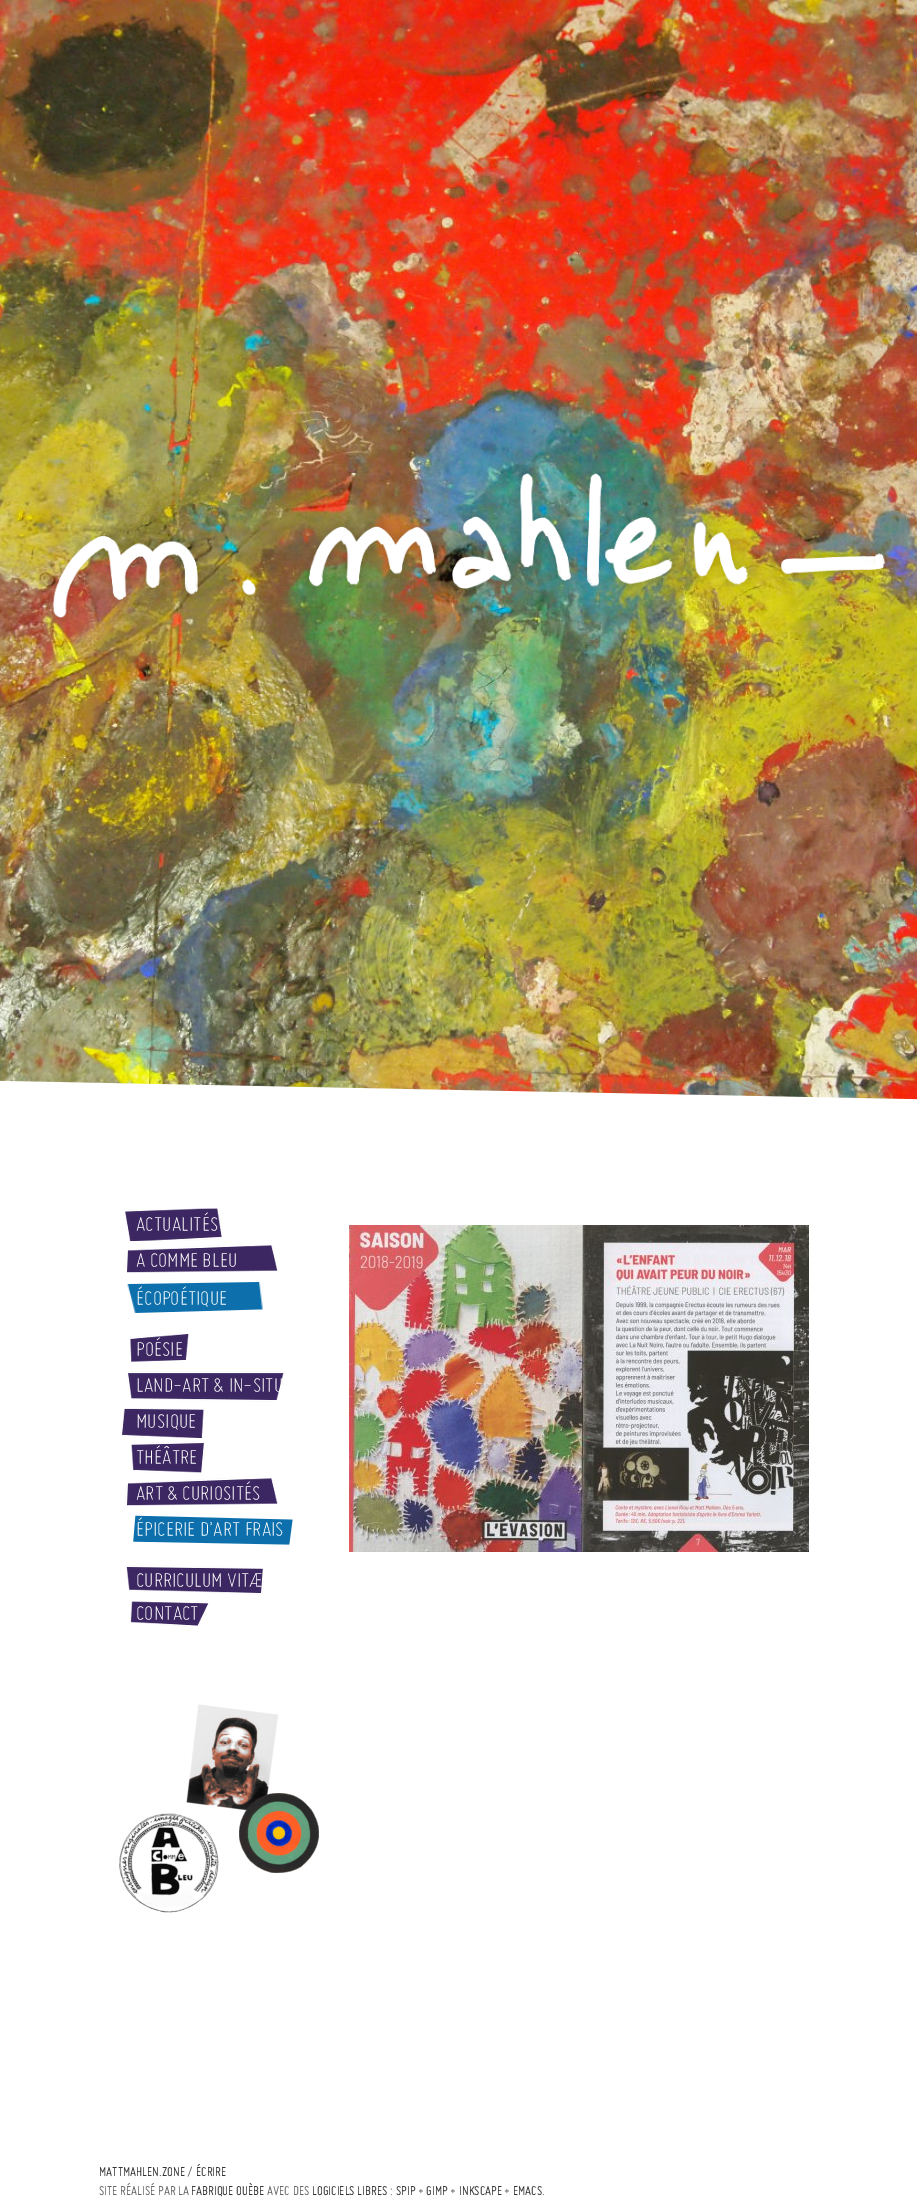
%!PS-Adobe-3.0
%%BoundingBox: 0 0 917 2210
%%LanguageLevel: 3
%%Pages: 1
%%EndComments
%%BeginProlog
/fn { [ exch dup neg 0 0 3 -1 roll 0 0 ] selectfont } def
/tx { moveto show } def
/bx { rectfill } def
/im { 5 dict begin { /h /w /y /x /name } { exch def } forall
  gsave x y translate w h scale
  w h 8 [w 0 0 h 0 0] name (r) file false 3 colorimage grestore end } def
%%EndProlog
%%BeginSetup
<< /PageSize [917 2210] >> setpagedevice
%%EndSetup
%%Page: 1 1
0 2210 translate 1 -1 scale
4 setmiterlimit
1 setgray
0 0 917 2210 bx
(image0.raw) 0 0 917 1105 im
(image1.raw) 47 471 842 151 im
(image2.raw) 125 1208 98 33 im
/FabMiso-LightItalic 22 fn
(ACTUALITÉS) 136 1231 tx
(image3.raw) 125 1245 153 28 im
(A COMME BLEU) 136 1267 tx
(image4.raw) 127 1282 136 31 im
(ÉCOPOÉTIQUE) 136 1305 tx
(image5.raw) 130 1334 59 28 im
(POÉSIE) 136 1356 tx
(image6.raw) 126 1371 158 31 im
(LAND-ART & IN-SITU) 136 1392 tx
(image7.raw) 120 1408 84 30 im
(MUSIQUE) 136 1428 tx
(image8.raw) 131 1441 74 32 im
(THÉÂTRE) 136 1464 tx
(image3.raw) 125 1478 153 28 im
(ART & CURIOSITÉS) 136 1500 tx
(image9.raw) 133 1515 160 30 im
(ÉPICERIE D’ART FRAIS) 136 1536 tx
(image10.raw) 126 1565 138 30 im
(CURRICULUM VITÆ) 136 1587 tx
(image11.raw) 130 1601 80 26 im
(CONTACT) 136 1620 tx
(image12.raw) 349 1225 460 327 im
(image13.raw) 186 1704 93 107 im
(image14.raw) 119 1813 100 100 im
(image15.raw) 239 1793 80 80 im
/FabMiso-Italic 14 fn
0.2 setgray
(MATTMAHLEN.ZONE) 99 2176 tx
0.4 setgray
(/) 187 2176 tx
0.2 setgray
(ÉCRIRE) 196 2176 tx
0.4 setgray
(SITE RÉALISÉ PAR LA) 99 2195 tx
0.2 setgray
(FABRIQUE OUÈBE) 191 2195 tx
0.4 setgray
(AVEC DES) 267 2195 tx
0.2 setgray
(LOGICIELS LIBRES) 312 2195 tx
0.4 setgray
(:) 390 2195 tx
0.2 setgray
(SPIP) 396 2195 tx
0.4 setgray
(+) 418 2195 tx
0.2 setgray
(GIMP) 426 2195 tx
0.4 setgray
(+) 450 2195 tx
0.2 setgray
(INKSCAPE) 459 2195 tx
0.4 setgray
(+) 504 2195 tx
0.2 setgray
(EMACS) 513 2195 tx
0.4 setgray
(.) 542 2195 tx
showpage
%%EOF
